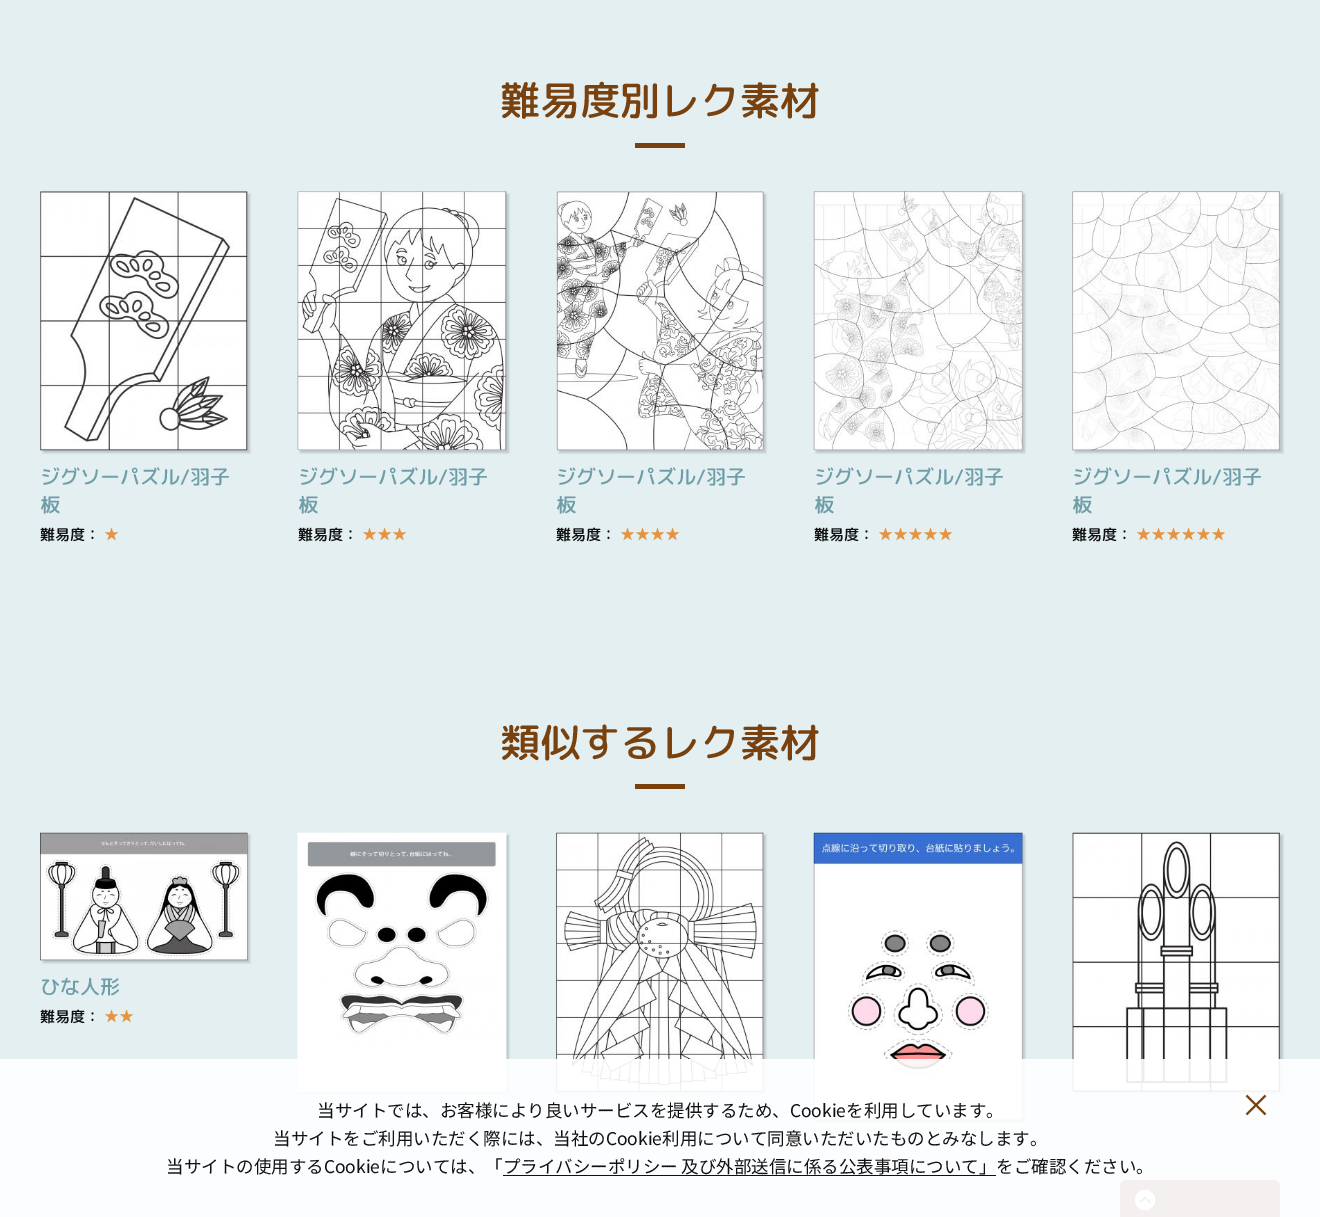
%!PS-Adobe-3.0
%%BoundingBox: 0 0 1320 1217
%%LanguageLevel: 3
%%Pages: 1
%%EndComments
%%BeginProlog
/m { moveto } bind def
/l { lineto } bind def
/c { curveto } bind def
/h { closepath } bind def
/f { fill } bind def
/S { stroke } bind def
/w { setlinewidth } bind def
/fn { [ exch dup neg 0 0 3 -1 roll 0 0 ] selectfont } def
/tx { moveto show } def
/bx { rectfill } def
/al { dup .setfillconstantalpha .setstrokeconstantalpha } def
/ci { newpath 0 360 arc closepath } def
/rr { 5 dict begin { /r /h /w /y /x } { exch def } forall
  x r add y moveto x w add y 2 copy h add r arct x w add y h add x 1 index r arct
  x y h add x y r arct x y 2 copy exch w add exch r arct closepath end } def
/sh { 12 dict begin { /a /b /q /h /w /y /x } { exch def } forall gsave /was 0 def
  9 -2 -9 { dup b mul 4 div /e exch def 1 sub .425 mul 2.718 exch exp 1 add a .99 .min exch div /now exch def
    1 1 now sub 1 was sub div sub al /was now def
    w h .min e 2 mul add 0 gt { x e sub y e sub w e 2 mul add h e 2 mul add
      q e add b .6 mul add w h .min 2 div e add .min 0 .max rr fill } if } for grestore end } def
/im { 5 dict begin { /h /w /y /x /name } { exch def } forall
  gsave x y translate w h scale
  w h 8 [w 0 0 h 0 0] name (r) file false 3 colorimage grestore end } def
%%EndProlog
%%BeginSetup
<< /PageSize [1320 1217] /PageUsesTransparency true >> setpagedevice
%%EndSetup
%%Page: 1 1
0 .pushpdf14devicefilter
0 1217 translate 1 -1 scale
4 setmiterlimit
0.894 0.937 0.949 setrgbcolor
0 0 1320 1217 bx
/RoundedMplus1c-Medium 40 fn
0.471 0.255 0.055 setrgbcolor
(難易度別レク素材) 500 115 tx
635 143 50 5 bx
0 setgray
43 194 207 259 0 1 0.16 sh
(image0.raw) 40 191 208 260 im
/RoundedMplus1c-Medium 20 fn
0.435 0.62 0.659 setrgbcolor
(ジグソーパズル/羽子) 40 484 tx
(板) 40 512 tx
/RoundedMplus1c-Medium 15 fn
0.067 setgray
(難易度：) 40 540 tx
0.898 0.58 0.263 setrgbcolor
(★) 104 540 tx
0 setgray
300 194 209 259 0 1 0.16 sh
(image1.raw) 297 191 210 260 im
/RoundedMplus1c-Medium 20 fn
0.435 0.62 0.659 setrgbcolor
(ジグソーパズル/羽子) 298 484 tx
(板) 298 512 tx
/RoundedMplus1c-Medium 15 fn
0.067 setgray
(難易度：) 298 540 tx
0.898 0.58 0.263 setrgbcolor
(★★★) 362 540 tx
0 setgray
559 194 207 259 0 1 0.16 sh
(image2.raw) 556 191 208 260 im
/RoundedMplus1c-Medium 20 fn
0.435 0.62 0.659 setrgbcolor
(ジグソーパズル/羽子) 556 484 tx
(板) 556 512 tx
/RoundedMplus1c-Medium 15 fn
0.067 setgray
(難易度：) 556 540 tx
0.898 0.58 0.263 setrgbcolor
(★★★★) 620 540 tx
0 setgray
816 194 209 259 0 1 0.16 sh
(image3.raw) 813 191 210 260 im
/RoundedMplus1c-Medium 20 fn
0.435 0.62 0.659 setrgbcolor
(ジグソーパズル/羽子) 814 484 tx
(板) 814 512 tx
/RoundedMplus1c-Medium 15 fn
0.067 setgray
(難易度：) 814 540 tx
0.898 0.58 0.263 setrgbcolor
(★★★★★) 878 540 tx
0 setgray
1075 194 208 259 0 1 0.16 sh
(image4.raw) 1072 191 208 260 im
/RoundedMplus1c-Medium 20 fn
0.435 0.62 0.659 setrgbcolor
(ジグソーパズル/羽子) 1072 484 tx
(板) 1072 512 tx
/RoundedMplus1c-Medium 15 fn
0.067 setgray
(難易度：) 1072 540 tx
0.898 0.58 0.263 setrgbcolor
(★★★★★★) 1136 540 tx
/RoundedMplus1c-Medium 40 fn
0.471 0.255 0.055 setrgbcolor
(類似するレク素材) 500 757 tx
635 784 50 5 bx
0 setgray
43 835 207 128 0 1 0.16 sh
(image5.raw) 40 832 208 129 im
/RoundedMplus1c-Medium 20 fn
0.435 0.62 0.659 setrgbcolor
(ひな人形) 40 994 tx
/RoundedMplus1c-Medium 15 fn
0.067 setgray
(難易度：) 40 1022 tx
0.898 0.58 0.263 setrgbcolor
(★★) 104 1022 tx
0 setgray
300 835 209 259 0 1 0.16 sh
(image6.raw) 297 832 210 260 im
559 835 207 259 0 1 0.16 sh
(image7.raw) 556 832 208 260 im
816 835 209 288 0 1 0.16 sh
(image8.raw) 813 832 210 289 im
1075 835 208 259 0 1 0.16 sh
(image9.raw) 1072 832 208 260 im
0.506 0.408 0.345 setrgbcolor
1126 1180 m 1274 1180 l 1277.5 1180 1280 1182.5 1280 1186 c 1280 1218 l 1120 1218 l 1120 1186 l 1120 1182.5 1122.5 1180 1126 1180 c h f
1 setgray
1145 1200 10 ci f
0.506 0.408 0.345 setrgbcolor
1.2 w
1 setlinecap
1150 1202.5 m 1145 1197.5 l 1140 1202.5 l S
0.9 al
1 setgray
0 1059 1320 158 bx
/NotoSansJP-Thin 17.5 fn
1 al
0.067 setgray
(当サイトでは、お客様により良いサービスを提供するため、Cookieを利用しています。) 317 1117 tx
(当サイトをご利用いただく際には、当社のCookie利用について同意いただいたものとみなします。) 273 1145 tx
(当サイトの使用するCookieについては、「プライバシーポリシー 及び外部送信に係る公表事項について」をご確認ください。) 166 1173 tx
503 1175 493 1 bx
/NotoSansJP-Thin 32 fn
0.471 0.255 0.055 setrgbcolor
(×) 1240 1117 tx
.poppdf14devicefilter showpage
%%EOF
